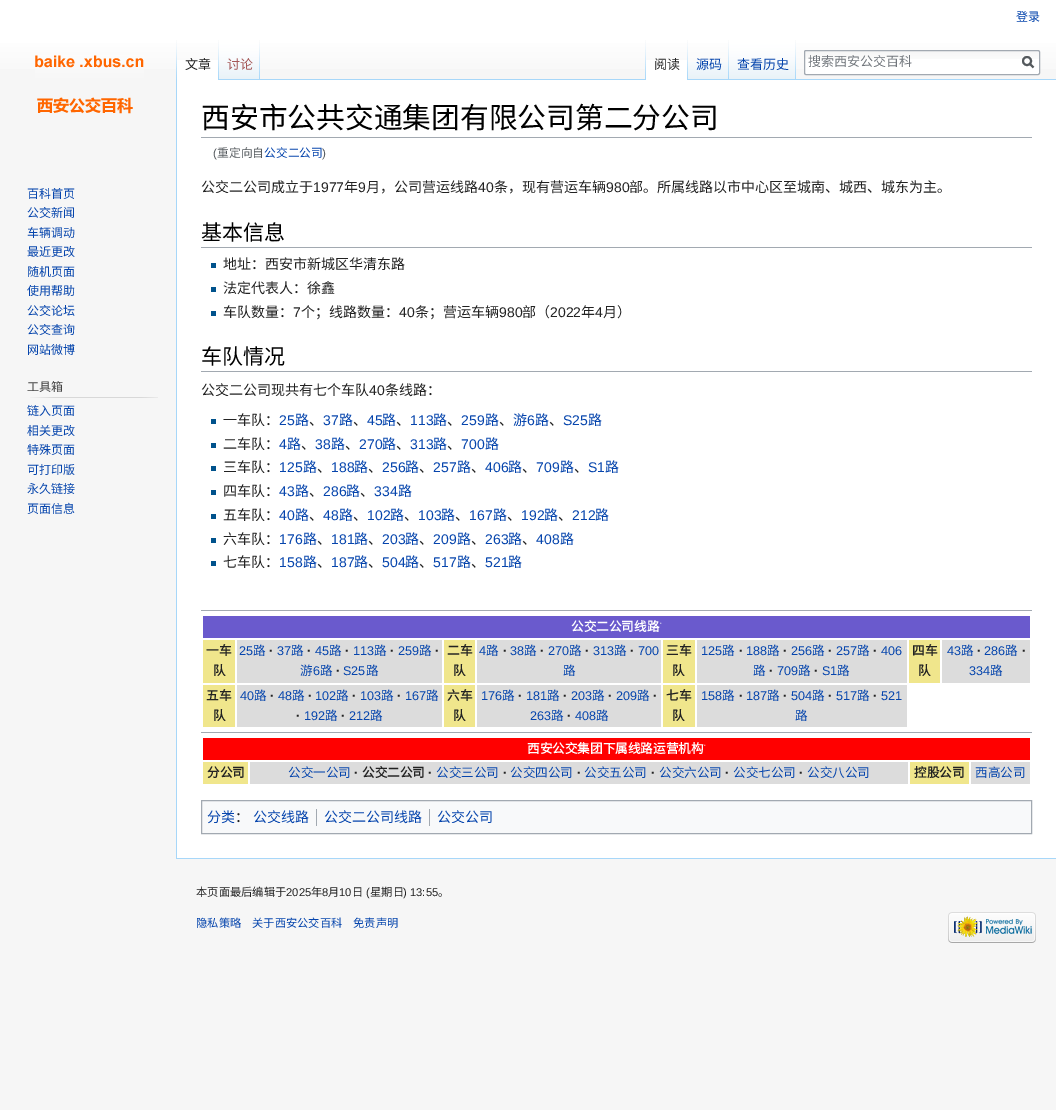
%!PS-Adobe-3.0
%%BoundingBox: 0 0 1056 1110
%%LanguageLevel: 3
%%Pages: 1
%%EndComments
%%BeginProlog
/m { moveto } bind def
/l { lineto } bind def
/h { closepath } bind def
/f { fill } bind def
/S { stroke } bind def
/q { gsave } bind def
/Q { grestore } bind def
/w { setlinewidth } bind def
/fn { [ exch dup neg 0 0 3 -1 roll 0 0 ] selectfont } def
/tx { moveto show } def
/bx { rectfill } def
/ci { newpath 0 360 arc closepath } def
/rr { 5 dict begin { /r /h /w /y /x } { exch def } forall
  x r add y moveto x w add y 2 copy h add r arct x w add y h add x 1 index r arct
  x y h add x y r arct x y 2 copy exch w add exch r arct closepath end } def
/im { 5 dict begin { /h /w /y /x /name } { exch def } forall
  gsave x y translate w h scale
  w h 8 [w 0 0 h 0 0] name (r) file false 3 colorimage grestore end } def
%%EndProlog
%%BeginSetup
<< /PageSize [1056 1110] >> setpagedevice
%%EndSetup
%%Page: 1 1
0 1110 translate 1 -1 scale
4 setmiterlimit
0.965 setgray
0 0 1056 1110 bx
q 0 0 m 1056 0 l 1056 69 l 0 69 l h clip newpath
<< /ShadingType 2 /ColorSpace /DeviceRGB /Coords [528 0 528 80] /Extend [true true] /Function << /FunctionType 3 /Domain [0 1] /Functions [<< /FunctionType 2 /Domain [0 1] /C0 [1 1 1] /C1 [1 1 1] /N 1 >> << /FunctionType 2 /Domain [0 1] /C0 [1 1 1] /C1 [0.965 0.965 0.965] /N 1 >>] /Bounds [0.5] /Encode [0 1 0 1] >> >> shfill Q
/NotoSansCJKSC-Regular 12 fn
0.024 0.271 0.678 setrgbcolor
(登录) 1016 21 tx
(image0.raw) 176 40 1 39 im
1 setgray
177 60 41 20 bx
(image1.raw) 218 40 1 40 im
/NotoSansCJKSC-Regular 13 fn
0.133 setgray
(文章) 185 69 tx
(image2.raw) 219 40 40 39 im
(image0.raw) 259 40 1 39 im
0.647 0.345 0.345 setrgbcolor
(讨论) 227 69 tx
(image0.raw) 645 40 1 39 im
0.655 0.843 0.976 setrgbcolor
219 79 837 1 bx
1 setgray
646 60 41 20 bx
(image1.raw) 687 40 1 40 im
0.133 setgray
(阅读) 654 69 tx
(image3.raw) 688 62 40 17 im
(image0.raw) 728 40 1 39 im
0.024 0.271 0.678 setrgbcolor
(源码) 696 69 tx
(image4.raw) 729 40 66 39 im
(image0.raw) 795 40 1 39 im
(查看历史) 737 69 tx
1 setgray
804 50 236 25 2 rr f
(image5.raw) 804 51 236 8 im
0.635 0.663 0.694 setrgbcolor
804.5 50.5 235 24 1.5 rr S
0.447 0.467 0.49 setrgbcolor
(搜索西安公交百科) 808 66 tx
0.329 0.349 0.365 setrgbcolor
2 w
1033.5 67.5 m 1029.5 63.5 l S
1027 61 4 ci S
(image6.raw) 35 55 109 59 im
/NotoSansCJKSC-Regular 12 fn
0.024 0.271 0.678 setrgbcolor
(百科首页) 27 198 tx
(公交新闻) 27 217 tx
(车辆调动) 27 237 tx
(最近更改) 27 256 tx
(随机页面) 27 276 tx
(使用帮助) 27 295 tx
(公交论坛) 27 315 tx
(公交查询) 27 334 tx
(网站微博) 27 354 tx
0.267 setgray
(工具箱) 27 391 tx
(image7.raw) 30 397 128 1 im
0.024 0.271 0.678 setrgbcolor
(链入页面) 27 415 tx
(相关更改) 27 435 tx
(特殊页面) 27 454 tx
(可打印版) 27 474 tx
(永久链接) 27 493 tx
(页面信息) 27 513 tx
1 setgray
177 80 879 778 bx
0.655 0.843 0.976 setrgbcolor
176 858 880 1 bx
176 79 1 780 bx
0.635 0.663 0.694 setrgbcolor
201 137 831 1 bx
/NotoSansCJKSC-Regular 28.75 fn
0 setgray
(西安市公共交通集团有限公司第二分公司) 201 128 tx
/LiberationSans-Regular 11.75 fn
0.329 0.349 0.365 setrgbcolor
(\() 213 157 tx
/NotoSansCJKSC-Regular 11.75 fn
(重定向自) 217 157 tx
0.024 0.271 0.678 setrgbcolor
(公交二公司) 264 157 tx
/LiberationSans-Regular 11.75 fn
0.329 0.349 0.365 setrgbcolor
(\)) 322 157 tx
/NotoSansCJKSC-Regular 14 fn
0.133 setgray
(公交二公司成立于) 201 192 tx
/LiberationSans-Regular 14 fn
(1977) 313 192 tx
/NotoSansCJKSC-Regular 14 fn
(年) 344 192 tx
/LiberationSans-Regular 14 fn
(9) 358 192 tx
/NotoSansCJKSC-Regular 14 fn
(月，公司营运线路) 366 192 tx
/LiberationSans-Regular 14 fn
(40) 478 192 tx
/NotoSansCJKSC-Regular 14 fn
(条，现有营运车辆) 494 192 tx
/LiberationSans-Regular 14 fn
(980) 606 192 tx
/NotoSansCJKSC-Regular 14 fn
(部。所属线路以市中心区至城南、城西、城东为主。) 629 192 tx
0.635 0.663 0.694 setrgbcolor
201 247 831 1 bx
/NotoSansCJKSC-Regular 21 fn
0 setgray
(基本信息) 201 240 tx
0 0.322 0.549 setrgbcolor
211 263 5 5 bx
/NotoSansCJKSC-Regular 14 fn
0.133 setgray
(地址：西安市新城区华清东路) 223 269 tx
0 0.322 0.549 setrgbcolor
211 287 5 5 bx
0.133 setgray
(法定代表人：徐鑫) 223 293 tx
0 0.322 0.549 setrgbcolor
211 311 5 5 bx
0.133 setgray
(车队数量：) 223 317 tx
/LiberationSans-Regular 14 fn
(7) 293 317 tx
/NotoSansCJKSC-Regular 14 fn
(个；线路数量：) 301 317 tx
/LiberationSans-Regular 14 fn
(40) 399 317 tx
/NotoSansCJKSC-Regular 14 fn
(条；营运车辆) 415 317 tx
/LiberationSans-Regular 14 fn
(980) 499 317 tx
/NotoSansCJKSC-Regular 14 fn
(部（) 522 317 tx
/LiberationSans-Regular 14 fn
(2022) 550 317 tx
/NotoSansCJKSC-Regular 14 fn
(年) 581 317 tx
/LiberationSans-Regular 14 fn
(4) 595 317 tx
/NotoSansCJKSC-Regular 14 fn
(月）) 603 317 tx
0.635 0.663 0.694 setrgbcolor
201 371 831 1 bx
/NotoSansCJKSC-Regular 21 fn
0 setgray
(车队情况) 201 364 tx
/NotoSansCJKSC-Regular 14 fn
0.133 setgray
(公交二公司现共有七个车队) 201 395 tx
/LiberationSans-Regular 14 fn
(40) 369 395 tx
/NotoSansCJKSC-Regular 14 fn
(条线路：) 385 395 tx
0 0.322 0.549 setrgbcolor
211 419 5 5 bx
0.133 setgray
(一车队：) 223 425 tx
/LiberationSans-Regular 14 fn
0.024 0.271 0.678 setrgbcolor
(25) 279 425 tx
/NotoSansCJKSC-Regular 14 fn
(路) 295 425 tx
0.133 setgray
(、) 309 425 tx
/LiberationSans-Regular 14 fn
0.024 0.271 0.678 setrgbcolor
(37) 323 425 tx
/NotoSansCJKSC-Regular 14 fn
(路) 339 425 tx
0.133 setgray
(、) 353 425 tx
/LiberationSans-Regular 14 fn
0.024 0.271 0.678 setrgbcolor
(45) 367 425 tx
/NotoSansCJKSC-Regular 14 fn
(路) 382 425 tx
0.133 setgray
(、) 396 425 tx
/LiberationSans-Regular 14 fn
0.024 0.271 0.678 setrgbcolor
(113) 410 425 tx
/NotoSansCJKSC-Regular 14 fn
(路) 433 425 tx
0.133 setgray
(、) 447 425 tx
/LiberationSans-Regular 14 fn
0.024 0.271 0.678 setrgbcolor
(259) 461 425 tx
/NotoSansCJKSC-Regular 14 fn
(路) 485 425 tx
0.133 setgray
(、) 499 425 tx
0.024 0.271 0.678 setrgbcolor
(游) 513 425 tx
/LiberationSans-Regular 14 fn
(6) 527 425 tx
/NotoSansCJKSC-Regular 14 fn
(路) 535 425 tx
0.133 setgray
(、) 549 425 tx
/LiberationSans-Regular 14 fn
0.024 0.271 0.678 setrgbcolor
(S25) 563 425 tx
/NotoSansCJKSC-Regular 14 fn
(路) 588 425 tx
0 0.322 0.549 setrgbcolor
211 443 5 5 bx
0.133 setgray
(二车队：) 223 449 tx
/LiberationSans-Regular 14 fn
0.024 0.271 0.678 setrgbcolor
(4) 279 449 tx
/NotoSansCJKSC-Regular 14 fn
(路) 287 449 tx
0.133 setgray
(、) 301 449 tx
/LiberationSans-Regular 14 fn
0.024 0.271 0.678 setrgbcolor
(38) 315 449 tx
/NotoSansCJKSC-Regular 14 fn
(路) 331 449 tx
0.133 setgray
(、) 345 449 tx
/LiberationSans-Regular 14 fn
0.024 0.271 0.678 setrgbcolor
(270) 359 449 tx
/NotoSansCJKSC-Regular 14 fn
(路) 382 449 tx
0.133 setgray
(、) 396 449 tx
/LiberationSans-Regular 14 fn
0.024 0.271 0.678 setrgbcolor
(313) 410 449 tx
/NotoSansCJKSC-Regular 14 fn
(路) 433 449 tx
0.133 setgray
(、) 447 449 tx
/LiberationSans-Regular 14 fn
0.024 0.271 0.678 setrgbcolor
(700) 461 449 tx
/NotoSansCJKSC-Regular 14 fn
(路) 485 449 tx
0 0.322 0.549 setrgbcolor
211 466 5 5 bx
0.133 setgray
(三车队：) 223 472 tx
/LiberationSans-Regular 14 fn
0.024 0.271 0.678 setrgbcolor
(125) 279 472 tx
/NotoSansCJKSC-Regular 14 fn
(路) 303 472 tx
0.133 setgray
(、) 317 472 tx
/LiberationSans-Regular 14 fn
0.024 0.271 0.678 setrgbcolor
(188) 331 472 tx
/NotoSansCJKSC-Regular 14 fn
(路) 354 472 tx
0.133 setgray
(、) 368 472 tx
/LiberationSans-Regular 14 fn
0.024 0.271 0.678 setrgbcolor
(256) 382 472 tx
/NotoSansCJKSC-Regular 14 fn
(路) 405 472 tx
0.133 setgray
(、) 419 472 tx
/LiberationSans-Regular 14 fn
0.024 0.271 0.678 setrgbcolor
(257) 433 472 tx
/NotoSansCJKSC-Regular 14 fn
(路) 457 472 tx
0.133 setgray
(、) 471 472 tx
/LiberationSans-Regular 14 fn
0.024 0.271 0.678 setrgbcolor
(406) 485 472 tx
/NotoSansCJKSC-Regular 14 fn
(路) 508 472 tx
0.133 setgray
(、) 522 472 tx
/LiberationSans-Regular 14 fn
0.024 0.271 0.678 setrgbcolor
(709) 536 472 tx
/NotoSansCJKSC-Regular 14 fn
(路) 560 472 tx
0.133 setgray
(、) 574 472 tx
/LiberationSans-Regular 14 fn
0.024 0.271 0.678 setrgbcolor
(S1) 588 472 tx
/NotoSansCJKSC-Regular 14 fn
(路) 605 472 tx
0 0.322 0.549 setrgbcolor
211 490 5 5 bx
0.133 setgray
(四车队：) 223 496 tx
/LiberationSans-Regular 14 fn
0.024 0.271 0.678 setrgbcolor
(43) 279 496 tx
/NotoSansCJKSC-Regular 14 fn
(路) 295 496 tx
0.133 setgray
(、) 309 496 tx
/LiberationSans-Regular 14 fn
0.024 0.271 0.678 setrgbcolor
(286) 323 496 tx
/NotoSansCJKSC-Regular 14 fn
(路) 346 496 tx
0.133 setgray
(、) 360 496 tx
/LiberationSans-Regular 14 fn
0.024 0.271 0.678 setrgbcolor
(334) 374 496 tx
/NotoSansCJKSC-Regular 14 fn
(路) 398 496 tx
0 0.322 0.549 setrgbcolor
211 514 5 5 bx
0.133 setgray
(五车队：) 223 520 tx
/LiberationSans-Regular 14 fn
0.024 0.271 0.678 setrgbcolor
(40) 279 520 tx
/NotoSansCJKSC-Regular 14 fn
(路) 295 520 tx
0.133 setgray
(、) 309 520 tx
/LiberationSans-Regular 14 fn
0.024 0.271 0.678 setrgbcolor
(48) 323 520 tx
/NotoSansCJKSC-Regular 14 fn
(路) 339 520 tx
0.133 setgray
(、) 353 520 tx
/LiberationSans-Regular 14 fn
0.024 0.271 0.678 setrgbcolor
(102) 367 520 tx
/NotoSansCJKSC-Regular 14 fn
(路) 390 520 tx
0.133 setgray
(、) 404 520 tx
/LiberationSans-Regular 14 fn
0.024 0.271 0.678 setrgbcolor
(103) 418 520 tx
/NotoSansCJKSC-Regular 14 fn
(路) 441 520 tx
0.133 setgray
(、) 455 520 tx
/LiberationSans-Regular 14 fn
0.024 0.271 0.678 setrgbcolor
(167) 469 520 tx
/NotoSansCJKSC-Regular 14 fn
(路) 493 520 tx
0.133 setgray
(、) 507 520 tx
/LiberationSans-Regular 14 fn
0.024 0.271 0.678 setrgbcolor
(192) 521 520 tx
/NotoSansCJKSC-Regular 14 fn
(路) 544 520 tx
0.133 setgray
(、) 558 520 tx
/LiberationSans-Regular 14 fn
0.024 0.271 0.678 setrgbcolor
(212) 572 520 tx
/NotoSansCJKSC-Regular 14 fn
(路) 595 520 tx
0 0.322 0.549 setrgbcolor
211 538 5 5 bx
0.133 setgray
(六车队：) 223 544 tx
/LiberationSans-Regular 14 fn
0.024 0.271 0.678 setrgbcolor
(176) 279 544 tx
/NotoSansCJKSC-Regular 14 fn
(路) 303 544 tx
0.133 setgray
(、) 317 544 tx
/LiberationSans-Regular 14 fn
0.024 0.271 0.678 setrgbcolor
(181) 331 544 tx
/NotoSansCJKSC-Regular 14 fn
(路) 354 544 tx
0.133 setgray
(、) 368 544 tx
/LiberationSans-Regular 14 fn
0.024 0.271 0.678 setrgbcolor
(203) 382 544 tx
/NotoSansCJKSC-Regular 14 fn
(路) 405 544 tx
0.133 setgray
(、) 419 544 tx
/LiberationSans-Regular 14 fn
0.024 0.271 0.678 setrgbcolor
(209) 433 544 tx
/NotoSansCJKSC-Regular 14 fn
(路) 457 544 tx
0.133 setgray
(、) 471 544 tx
/LiberationSans-Regular 14 fn
0.024 0.271 0.678 setrgbcolor
(263) 485 544 tx
/NotoSansCJKSC-Regular 14 fn
(路) 508 544 tx
0.133 setgray
(、) 522 544 tx
/LiberationSans-Regular 14 fn
0.024 0.271 0.678 setrgbcolor
(408) 536 544 tx
/NotoSansCJKSC-Regular 14 fn
(路) 560 544 tx
0 0.322 0.549 setrgbcolor
211 561 5 5 bx
0.133 setgray
(七车队：) 223 567 tx
/LiberationSans-Regular 14 fn
0.024 0.271 0.678 setrgbcolor
(158) 279 567 tx
/NotoSansCJKSC-Regular 14 fn
(路) 303 567 tx
0.133 setgray
(、) 317 567 tx
/LiberationSans-Regular 14 fn
0.024 0.271 0.678 setrgbcolor
(187) 331 567 tx
/NotoSansCJKSC-Regular 14 fn
(路) 354 567 tx
0.133 setgray
(、) 368 567 tx
/LiberationSans-Regular 14 fn
0.024 0.271 0.678 setrgbcolor
(504) 382 567 tx
/NotoSansCJKSC-Regular 14 fn
(路) 405 567 tx
0.133 setgray
(、) 419 567 tx
/LiberationSans-Regular 14 fn
0.024 0.271 0.678 setrgbcolor
(517) 433 567 tx
/NotoSansCJKSC-Regular 14 fn
(路) 457 567 tx
0.133 setgray
(、) 471 567 tx
/LiberationSans-Regular 14 fn
0.024 0.271 0.678 setrgbcolor
(521) 485 567 tx
/NotoSansCJKSC-Regular 14 fn
(路) 508 567 tx
0.635 0.663 0.694 setrgbcolor
201 610 831 1 bx
0.416 0.353 0.804 setrgbcolor
203 616 827 22 bx
/NotoSansCJKSC-Bold 12.6 fn
1 setgray
(公交二公司线路) 571 631 tx
/LiberationSans-Regular 10 fn
(·) 659 626 tx
0.941 0.902 0.549 setrgbcolor
203 640 32 43 bx
/NotoSansCJKSC-Bold 12.6 fn
0.133 setgray
(一车) 206 655 tx
(队) 213 675 tx
0.863 setgray
237 640 205 43 bx
/LiberationSans-Regular 12.6 fn
0.024 0.271 0.678 setrgbcolor
(25) 239 655 tx
/NotoSansCJKSC-Regular 12.6 fn
(路) 253 655 tx
/LiberationSans-Bold 12.6 fn
0.133 setgray
(·) 269 655 tx
/LiberationSans-Regular 12.6 fn
0.024 0.271 0.678 setrgbcolor
(37) 277 655 tx
/NotoSansCJKSC-Regular 12.6 fn
(路) 291 655 tx
/LiberationSans-Bold 12.6 fn
0.133 setgray
(·) 307 655 tx
/LiberationSans-Regular 12.6 fn
0.024 0.271 0.678 setrgbcolor
(45) 315 655 tx
/NotoSansCJKSC-Regular 12.6 fn
(路) 329 655 tx
/LiberationSans-Bold 12.6 fn
0.133 setgray
(·) 345 655 tx
/LiberationSans-Regular 12.6 fn
0.024 0.271 0.678 setrgbcolor
(113) 353 655 tx
/NotoSansCJKSC-Regular 12.6 fn
(路) 374 655 tx
/LiberationSans-Bold 12.6 fn
0.133 setgray
(·) 390 655 tx
/LiberationSans-Regular 12.6 fn
0.024 0.271 0.678 setrgbcolor
(259) 398 655 tx
/NotoSansCJKSC-Regular 12.6 fn
(路) 419 655 tx
/LiberationSans-Bold 12.6 fn
0.133 setgray
(·) 435 655 tx
/NotoSansCJKSC-Regular 12.6 fn
0.024 0.271 0.678 setrgbcolor
(游) 300 675 tx
/LiberationSans-Regular 12.6 fn
(6) 313 675 tx
/NotoSansCJKSC-Regular 12.6 fn
(路) 320 675 tx
/LiberationSans-Bold 12.6 fn
0.133 setgray
(·) 336 675 tx
/LiberationSans-Regular 12.6 fn
0.024 0.271 0.678 setrgbcolor
(S25) 343 675 tx
/NotoSansCJKSC-Regular 12.6 fn
(路) 366 675 tx
0.941 0.902 0.549 setrgbcolor
444 640 31 43 bx
/NotoSansCJKSC-Bold 12.6 fn
0.133 setgray
(二车) 447 655 tx
(队) 453 675 tx
0.863 setgray
477 640 184 43 bx
/LiberationSans-Regular 12.6 fn
0.024 0.271 0.678 setrgbcolor
(4) 479 655 tx
/NotoSansCJKSC-Regular 12.6 fn
(路) 486 655 tx
/LiberationSans-Bold 12.6 fn
0.133 setgray
(·) 503 655 tx
/LiberationSans-Regular 12.6 fn
0.024 0.271 0.678 setrgbcolor
(38) 510 655 tx
/NotoSansCJKSC-Regular 12.6 fn
(路) 524 655 tx
/LiberationSans-Bold 12.6 fn
0.133 setgray
(·) 540 655 tx
/LiberationSans-Regular 12.6 fn
0.024 0.271 0.678 setrgbcolor
(270) 548 655 tx
/NotoSansCJKSC-Regular 12.6 fn
(路) 569 655 tx
/LiberationSans-Bold 12.6 fn
0.133 setgray
(·) 585 655 tx
/LiberationSans-Regular 12.6 fn
0.024 0.271 0.678 setrgbcolor
(313) 593 655 tx
/NotoSansCJKSC-Regular 12.6 fn
(路) 614 655 tx
/LiberationSans-Bold 12.6 fn
0.133 setgray
(·) 630 655 tx
/LiberationSans-Regular 12.6 fn
0.024 0.271 0.678 setrgbcolor
(700) 638 655 tx
/NotoSansCJKSC-Regular 12.6 fn
(路) 563 675 tx
0.941 0.902 0.549 setrgbcolor
663 640 32 43 bx
/NotoSansCJKSC-Bold 12.6 fn
0.133 setgray
(三车) 666 655 tx
(队) 672 675 tx
0.863 setgray
697 640 210 43 bx
/LiberationSans-Regular 12.6 fn
0.024 0.271 0.678 setrgbcolor
(125) 701 655 tx
/NotoSansCJKSC-Regular 12.6 fn
(路) 722 655 tx
/LiberationSans-Bold 12.6 fn
0.133 setgray
(·) 739 655 tx
/LiberationSans-Regular 12.6 fn
0.024 0.271 0.678 setrgbcolor
(188) 746 655 tx
/NotoSansCJKSC-Regular 12.6 fn
(路) 767 655 tx
/LiberationSans-Bold 12.6 fn
0.133 setgray
(·) 783 655 tx
/LiberationSans-Regular 12.6 fn
0.024 0.271 0.678 setrgbcolor
(256) 791 655 tx
/NotoSansCJKSC-Regular 12.6 fn
(路) 812 655 tx
/LiberationSans-Bold 12.6 fn
0.133 setgray
(·) 828 655 tx
/LiberationSans-Regular 12.6 fn
0.024 0.271 0.678 setrgbcolor
(257) 836 655 tx
/NotoSansCJKSC-Regular 12.6 fn
(路) 857 655 tx
/LiberationSans-Bold 12.6 fn
0.133 setgray
(·) 873 655 tx
/LiberationSans-Regular 12.6 fn
0.024 0.271 0.678 setrgbcolor
(406) 881 655 tx
/NotoSansCJKSC-Regular 12.6 fn
(路) 753 675 tx
/LiberationSans-Bold 12.6 fn
0.133 setgray
(·) 769 675 tx
/LiberationSans-Regular 12.6 fn
0.024 0.271 0.678 setrgbcolor
(709) 777 675 tx
/NotoSansCJKSC-Regular 12.6 fn
(路) 798 675 tx
/LiberationSans-Bold 12.6 fn
0.133 setgray
(·) 814 675 tx
/LiberationSans-Regular 12.6 fn
0.024 0.271 0.678 setrgbcolor
(S1) 822 675 tx
/NotoSansCJKSC-Regular 12.6 fn
(路) 837 675 tx
0.941 0.902 0.549 setrgbcolor
909 640 31 43 bx
/NotoSansCJKSC-Bold 12.6 fn
0.133 setgray
(四车) 912 655 tx
(队) 918 675 tx
0.863 setgray
942 640 88 43 bx
/LiberationSans-Regular 12.6 fn
0.024 0.271 0.678 setrgbcolor
(43) 947 655 tx
/NotoSansCJKSC-Regular 12.6 fn
(路) 961 655 tx
/LiberationSans-Bold 12.6 fn
0.133 setgray
(·) 977 655 tx
/LiberationSans-Regular 12.6 fn
0.024 0.271 0.678 setrgbcolor
(286) 984 655 tx
/NotoSansCJKSC-Regular 12.6 fn
(路) 1005 655 tx
/LiberationSans-Bold 12.6 fn
0.133 setgray
(·) 1022 655 tx
/LiberationSans-Regular 12.6 fn
0.024 0.271 0.678 setrgbcolor
(334) 969 675 tx
/NotoSansCJKSC-Regular 12.6 fn
(路) 990 675 tx
0.941 0.902 0.549 setrgbcolor
203 685 32 42 bx
/NotoSansCJKSC-Bold 12.6 fn
0.133 setgray
(五车) 206 700 tx
(队) 213 720 tx
0.863 setgray
237 685 205 42 bx
/LiberationSans-Regular 12.6 fn
0.024 0.271 0.678 setrgbcolor
(40) 240 700 tx
/NotoSansCJKSC-Regular 12.6 fn
(路) 254 700 tx
/LiberationSans-Bold 12.6 fn
0.133 setgray
(·) 270 700 tx
/LiberationSans-Regular 12.6 fn
0.024 0.271 0.678 setrgbcolor
(48) 278 700 tx
/NotoSansCJKSC-Regular 12.6 fn
(路) 292 700 tx
/LiberationSans-Bold 12.6 fn
0.133 setgray
(·) 308 700 tx
/LiberationSans-Regular 12.6 fn
0.024 0.271 0.678 setrgbcolor
(102) 315 700 tx
/NotoSansCJKSC-Regular 12.6 fn
(路) 336 700 tx
/LiberationSans-Bold 12.6 fn
0.133 setgray
(·) 352 700 tx
/LiberationSans-Regular 12.6 fn
0.024 0.271 0.678 setrgbcolor
(103) 360 700 tx
/NotoSansCJKSC-Regular 12.6 fn
(路) 381 700 tx
/LiberationSans-Bold 12.6 fn
0.133 setgray
(·) 397 700 tx
/LiberationSans-Regular 12.6 fn
0.024 0.271 0.678 setrgbcolor
(167) 405 700 tx
/NotoSansCJKSC-Regular 12.6 fn
(路) 426 700 tx
/LiberationSans-Bold 12.6 fn
0.133 setgray
(·) 296 720 tx
/LiberationSans-Regular 12.6 fn
0.024 0.271 0.678 setrgbcolor
(192) 304 720 tx
/NotoSansCJKSC-Regular 12.6 fn
(路) 325 720 tx
/LiberationSans-Bold 12.6 fn
0.133 setgray
(·) 341 720 tx
/LiberationSans-Regular 12.6 fn
0.024 0.271 0.678 setrgbcolor
(212) 349 720 tx
/NotoSansCJKSC-Regular 12.6 fn
(路) 370 720 tx
0.941 0.902 0.549 setrgbcolor
444 685 31 42 bx
/NotoSansCJKSC-Bold 12.6 fn
0.133 setgray
(六车) 447 700 tx
(队) 453 720 tx
0.863 setgray
477 685 184 42 bx
/LiberationSans-Regular 12.6 fn
0.024 0.271 0.678 setrgbcolor
(176) 481 700 tx
/NotoSansCJKSC-Regular 12.6 fn
(路) 502 700 tx
/LiberationSans-Bold 12.6 fn
0.133 setgray
(·) 518 700 tx
/LiberationSans-Regular 12.6 fn
0.024 0.271 0.678 setrgbcolor
(181) 526 700 tx
/NotoSansCJKSC-Regular 12.6 fn
(路) 547 700 tx
/LiberationSans-Bold 12.6 fn
0.133 setgray
(·) 563 700 tx
/LiberationSans-Regular 12.6 fn
0.024 0.271 0.678 setrgbcolor
(203) 571 700 tx
/NotoSansCJKSC-Regular 12.6 fn
(路) 592 700 tx
/LiberationSans-Bold 12.6 fn
0.133 setgray
(·) 608 700 tx
/LiberationSans-Regular 12.6 fn
0.024 0.271 0.678 setrgbcolor
(209) 616 700 tx
/NotoSansCJKSC-Regular 12.6 fn
(路) 637 700 tx
/LiberationSans-Bold 12.6 fn
0.133 setgray
(·) 653 700 tx
/LiberationSans-Regular 12.6 fn
0.024 0.271 0.678 setrgbcolor
(263) 530 720 tx
/NotoSansCJKSC-Regular 12.6 fn
(路) 551 720 tx
/LiberationSans-Bold 12.6 fn
0.133 setgray
(·) 567 720 tx
/LiberationSans-Regular 12.6 fn
0.024 0.271 0.678 setrgbcolor
(408) 575 720 tx
/NotoSansCJKSC-Regular 12.6 fn
(路) 596 720 tx
0.941 0.902 0.549 setrgbcolor
663 685 32 42 bx
/NotoSansCJKSC-Bold 12.6 fn
0.133 setgray
(七车) 666 700 tx
(队) 672 720 tx
0.863 setgray
697 685 210 42 bx
/LiberationSans-Regular 12.6 fn
0.024 0.271 0.678 setrgbcolor
(158) 701 700 tx
/NotoSansCJKSC-Regular 12.6 fn
(路) 722 700 tx
/LiberationSans-Bold 12.6 fn
0.133 setgray
(·) 739 700 tx
/LiberationSans-Regular 12.6 fn
0.024 0.271 0.678 setrgbcolor
(187) 746 700 tx
/NotoSansCJKSC-Regular 12.6 fn
(路) 767 700 tx
/LiberationSans-Bold 12.6 fn
0.133 setgray
(·) 783 700 tx
/LiberationSans-Regular 12.6 fn
0.024 0.271 0.678 setrgbcolor
(504) 791 700 tx
/NotoSansCJKSC-Regular 12.6 fn
(路) 812 700 tx
/LiberationSans-Bold 12.6 fn
0.133 setgray
(·) 828 700 tx
/LiberationSans-Regular 12.6 fn
0.024 0.271 0.678 setrgbcolor
(517) 836 700 tx
/NotoSansCJKSC-Regular 12.6 fn
(路) 857 700 tx
/LiberationSans-Bold 12.6 fn
0.133 setgray
(·) 873 700 tx
/LiberationSans-Regular 12.6 fn
0.024 0.271 0.678 setrgbcolor
(521) 881 700 tx
/NotoSansCJKSC-Regular 12.6 fn
(路) 795 720 tx
0.635 0.663 0.694 setrgbcolor
201 732 831 1 bx
1 0 0 setrgbcolor
203 738 827 22 bx
/NotoSansCJKSC-Bold 12.6 fn
1 setgray
(西安公交集团下属线路运营机构) 527 753 tx
/LiberationSans-Regular 10 fn
(·) 703 748 tx
0.941 0.902 0.549 setrgbcolor
203 762 45 22 bx
/NotoSansCJKSC-Bold 12.6 fn
0.133 setgray
(分公司) 207 777 tx
0.863 setgray
250 762 658 22 bx
/NotoSansCJKSC-Regular 12.6 fn
0.024 0.271 0.678 setrgbcolor
(公交一公司) 288 777 tx
/LiberationSans-Bold 12.6 fn
0.133 setgray
(·) 354 777 tx
/NotoSansCJKSC-Bold 12.6 fn
(公交二公司) 362 777 tx
/LiberationSans-Bold 12.6 fn
(·) 428 777 tx
/NotoSansCJKSC-Regular 12.6 fn
0.024 0.271 0.678 setrgbcolor
(公交三公司) 436 777 tx
/LiberationSans-Bold 12.6 fn
0.133 setgray
(·) 503 777 tx
/NotoSansCJKSC-Regular 12.6 fn
0.024 0.271 0.678 setrgbcolor
(公交四公司) 510 777 tx
/LiberationSans-Bold 12.6 fn
0.133 setgray
(·) 577 777 tx
/NotoSansCJKSC-Regular 12.6 fn
0.024 0.271 0.678 setrgbcolor
(公交五公司) 584 777 tx
/LiberationSans-Bold 12.6 fn
0.133 setgray
(·) 651 777 tx
/NotoSansCJKSC-Regular 12.6 fn
0.024 0.271 0.678 setrgbcolor
(公交六公司) 659 777 tx
/LiberationSans-Bold 12.6 fn
0.133 setgray
(·) 725 777 tx
/NotoSansCJKSC-Regular 12.6 fn
0.024 0.271 0.678 setrgbcolor
(公交七公司) 733 777 tx
/LiberationSans-Bold 12.6 fn
0.133 setgray
(·) 799 777 tx
/NotoSansCJKSC-Regular 12.6 fn
0.024 0.271 0.678 setrgbcolor
(公交八公司) 807 777 tx
0.941 0.902 0.549 setrgbcolor
910 762 59 22 bx
/NotoSansCJKSC-Bold 12.6 fn
0.133 setgray
(控股公司) 914 777 tx
0.863 setgray
971 762 59 22 bx
/NotoSansCJKSC-Regular 12.6 fn
0.024 0.271 0.678 setrgbcolor
(西高公司) 975 777 tx
0.973 0.976 0.98 setrgbcolor
201.5 800.5 m 1031.5 800.5 l 1031.5 833.5 l 201.5 833.5 l h q f Q
0.635 0.663 0.694 setrgbcolor
1 w
S
/NotoSansCJKSC-Regular 14 fn
0.024 0.271 0.678 setrgbcolor
(分类) 207 822 tx
0.133 setgray
(：) 235 822 tx
0.024 0.271 0.678 setrgbcolor
(公交线路) 253 822 tx
0.635 0.663 0.694 setrgbcolor
316 809 1 17 bx
0.024 0.271 0.678 setrgbcolor
(公交二公司线路) 324 822 tx
0.635 0.663 0.694 setrgbcolor
429 809 1 17 bx
0.024 0.271 0.678 setrgbcolor
(公交公司) 437 822 tx
/NotoSansCJKSC-Regular 11.25 fn
0.133 setgray
(本页面最后编辑于) 196 896 tx
/LiberationSans-Regular 11.25 fn
(2025) 286 896 tx
/NotoSansCJKSC-Regular 11.25 fn
(年) 311 896 tx
/LiberationSans-Regular 11.25 fn
(8) 322 896 tx
/NotoSansCJKSC-Regular 11.25 fn
(月) 328 896 tx
/LiberationSans-Regular 11.25 fn
(10) 339 896 tx
/NotoSansCJKSC-Regular 11.25 fn
(日) 352 896 tx
/LiberationSans-Regular 11.25 fn
(\() 366 896 tx
/NotoSansCJKSC-Regular 11.25 fn
(星期日) 370 896 tx
/LiberationSans-Regular 11.25 fn
(\) 13:55) 403 896 tx
/NotoSansCJKSC-Regular 11.25 fn
(。) 438 896 tx
0.024 0.271 0.678 setrgbcolor
(隐私策略) 196 927 tx
(关于西安公交百科) 252 927 tx
(免责声明) 353 927 tx
(image8.raw) 948 912 88 31 im
showpage
%%EOF
